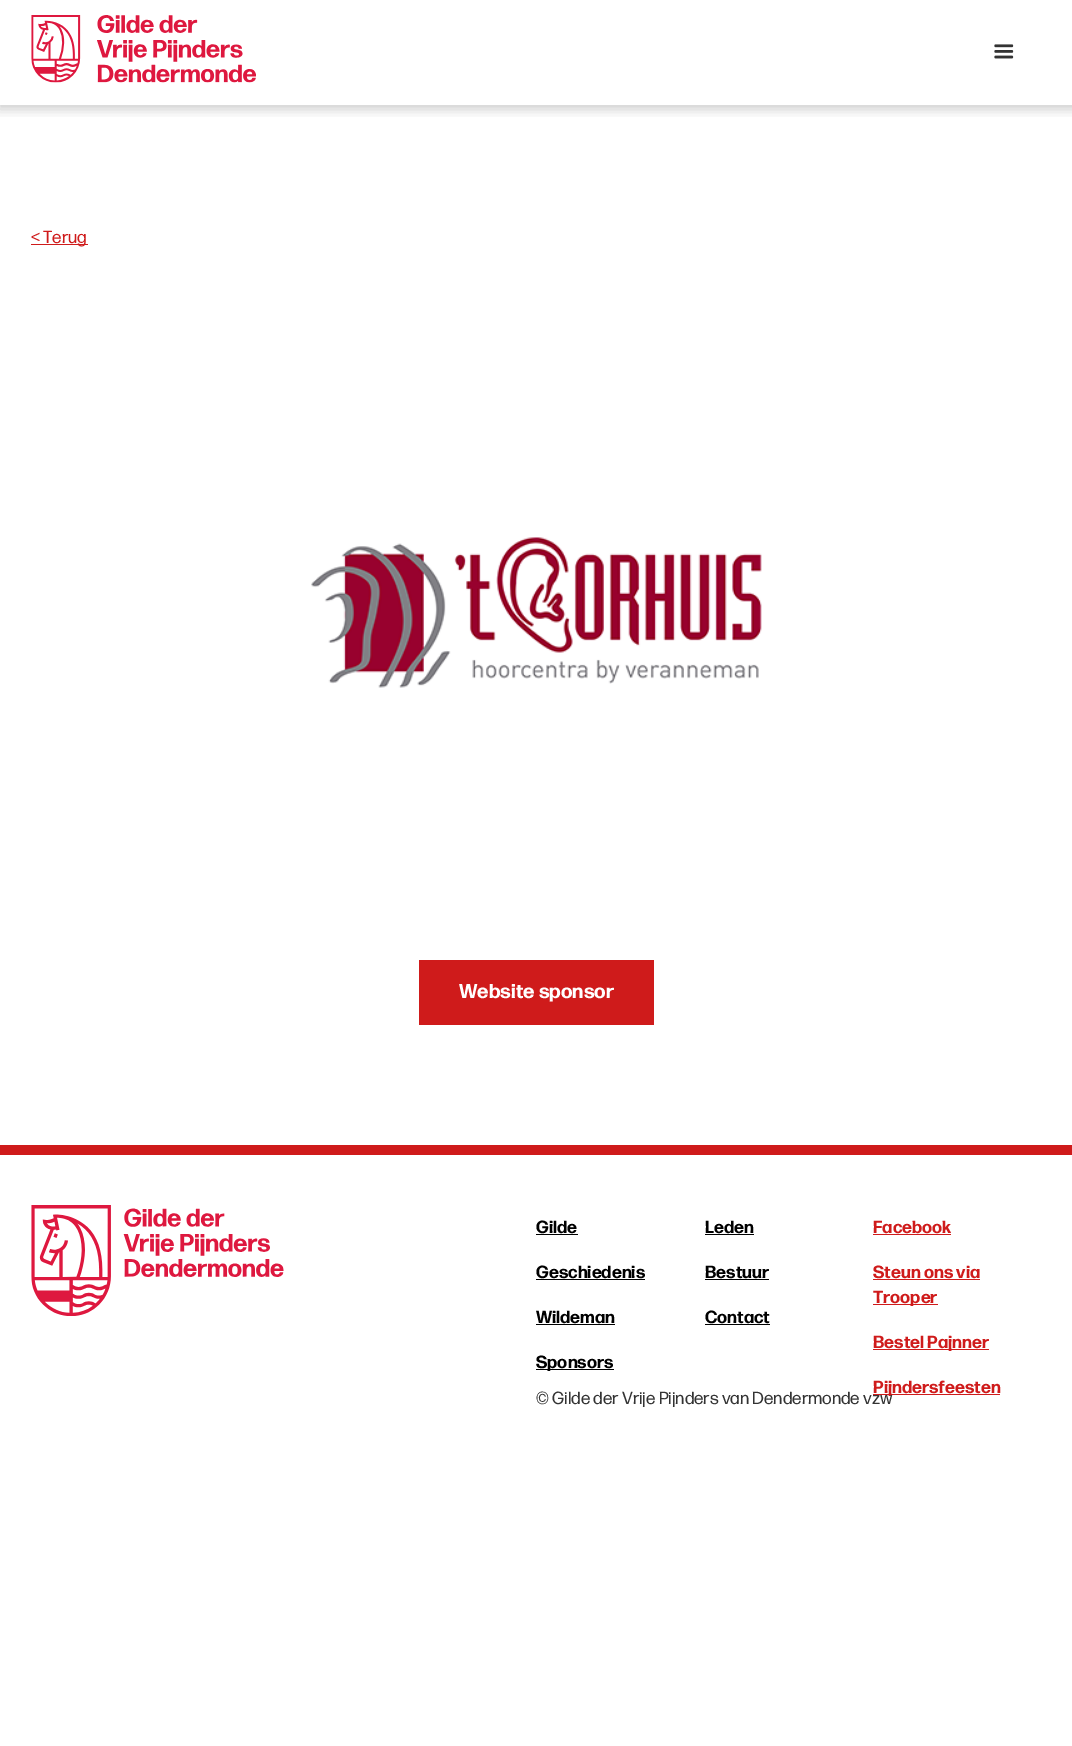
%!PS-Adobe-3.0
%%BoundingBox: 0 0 1072 1746
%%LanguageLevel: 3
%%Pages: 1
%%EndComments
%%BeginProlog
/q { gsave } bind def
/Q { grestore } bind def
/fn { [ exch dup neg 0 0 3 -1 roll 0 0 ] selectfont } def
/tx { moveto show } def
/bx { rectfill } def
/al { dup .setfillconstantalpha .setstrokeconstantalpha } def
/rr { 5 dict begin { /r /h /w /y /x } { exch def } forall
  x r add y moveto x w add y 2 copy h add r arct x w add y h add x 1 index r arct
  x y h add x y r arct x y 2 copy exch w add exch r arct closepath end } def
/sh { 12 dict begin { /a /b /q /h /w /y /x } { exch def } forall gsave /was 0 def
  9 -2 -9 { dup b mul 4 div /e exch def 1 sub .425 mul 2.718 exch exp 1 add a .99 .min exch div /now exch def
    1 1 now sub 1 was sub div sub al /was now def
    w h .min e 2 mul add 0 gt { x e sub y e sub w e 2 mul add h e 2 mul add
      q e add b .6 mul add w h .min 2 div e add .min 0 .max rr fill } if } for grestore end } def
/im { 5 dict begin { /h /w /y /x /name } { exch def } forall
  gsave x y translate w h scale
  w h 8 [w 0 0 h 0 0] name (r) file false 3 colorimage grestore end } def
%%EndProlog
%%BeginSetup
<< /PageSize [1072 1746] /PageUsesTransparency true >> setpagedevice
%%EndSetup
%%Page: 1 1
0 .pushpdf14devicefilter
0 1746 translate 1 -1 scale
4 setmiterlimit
1 setgray
0 0 1072 1746 bx
q
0 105 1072 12 rectclip
0 setgray
-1 -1 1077 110 0 6 0.2 sh
Q
(image0.raw) 31 15 225 68 im
(image1.raw) 994 44 20 15 im
0.812 0.106 0.106 setrgbcolor
31 244 57 1 bx
/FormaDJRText-Regular 17.5 fn
(< Terug) 31 243 tx
(image2.raw) 311 537 451 151 im
419 960 235 65 bx
/FormaDJRText-Bold 20 fn
1 setgray
(Website sponsor) 459 998 tx
0.812 0.106 0.106 setrgbcolor
0 1145 1072 10 bx
(image3.raw) 31 1205 253 111 im
/FormaDJRText-Bold 17.5 fn
0 setgray
(Gilde) 536 1233 tx
536 1234 42 1 bx
(Geschiedenis) 536 1278 tx
536 1279 109 1 bx
(Wildeman) 536 1323 tx
536 1324 79 1 bx
536 1369 78 1 bx
(Sponsors) 536 1368 tx
(Leden) 705 1233 tx
705 1234 49 1 bx
(Bestuur) 705 1278 tx
705 1279 64 1 bx
(Contact) 705 1323 tx
705 1324 65 1 bx
0.812 0.106 0.106 setrgbcolor
(Facebook) 873 1233 tx
873 1234 78 1 bx
(Steun ons via) 873 1278 tx
873 1279 107 1 bx
873 1304 65 1 bx
(Trooper) 873 1303 tx
873 1349 116 1 bx
(Bestel Pajnner) 873 1348 tx
873 1394 127 1 bx
(Pijndersfeesten) 873 1393 tx
/FormaDJRText-Regular 17.5 fn
0.2 setgray
(© Gilde der Vrije Pijnders van Dendermonde vzw) 536 1404 tx
.poppdf14devicefilter showpage
%%EOF
